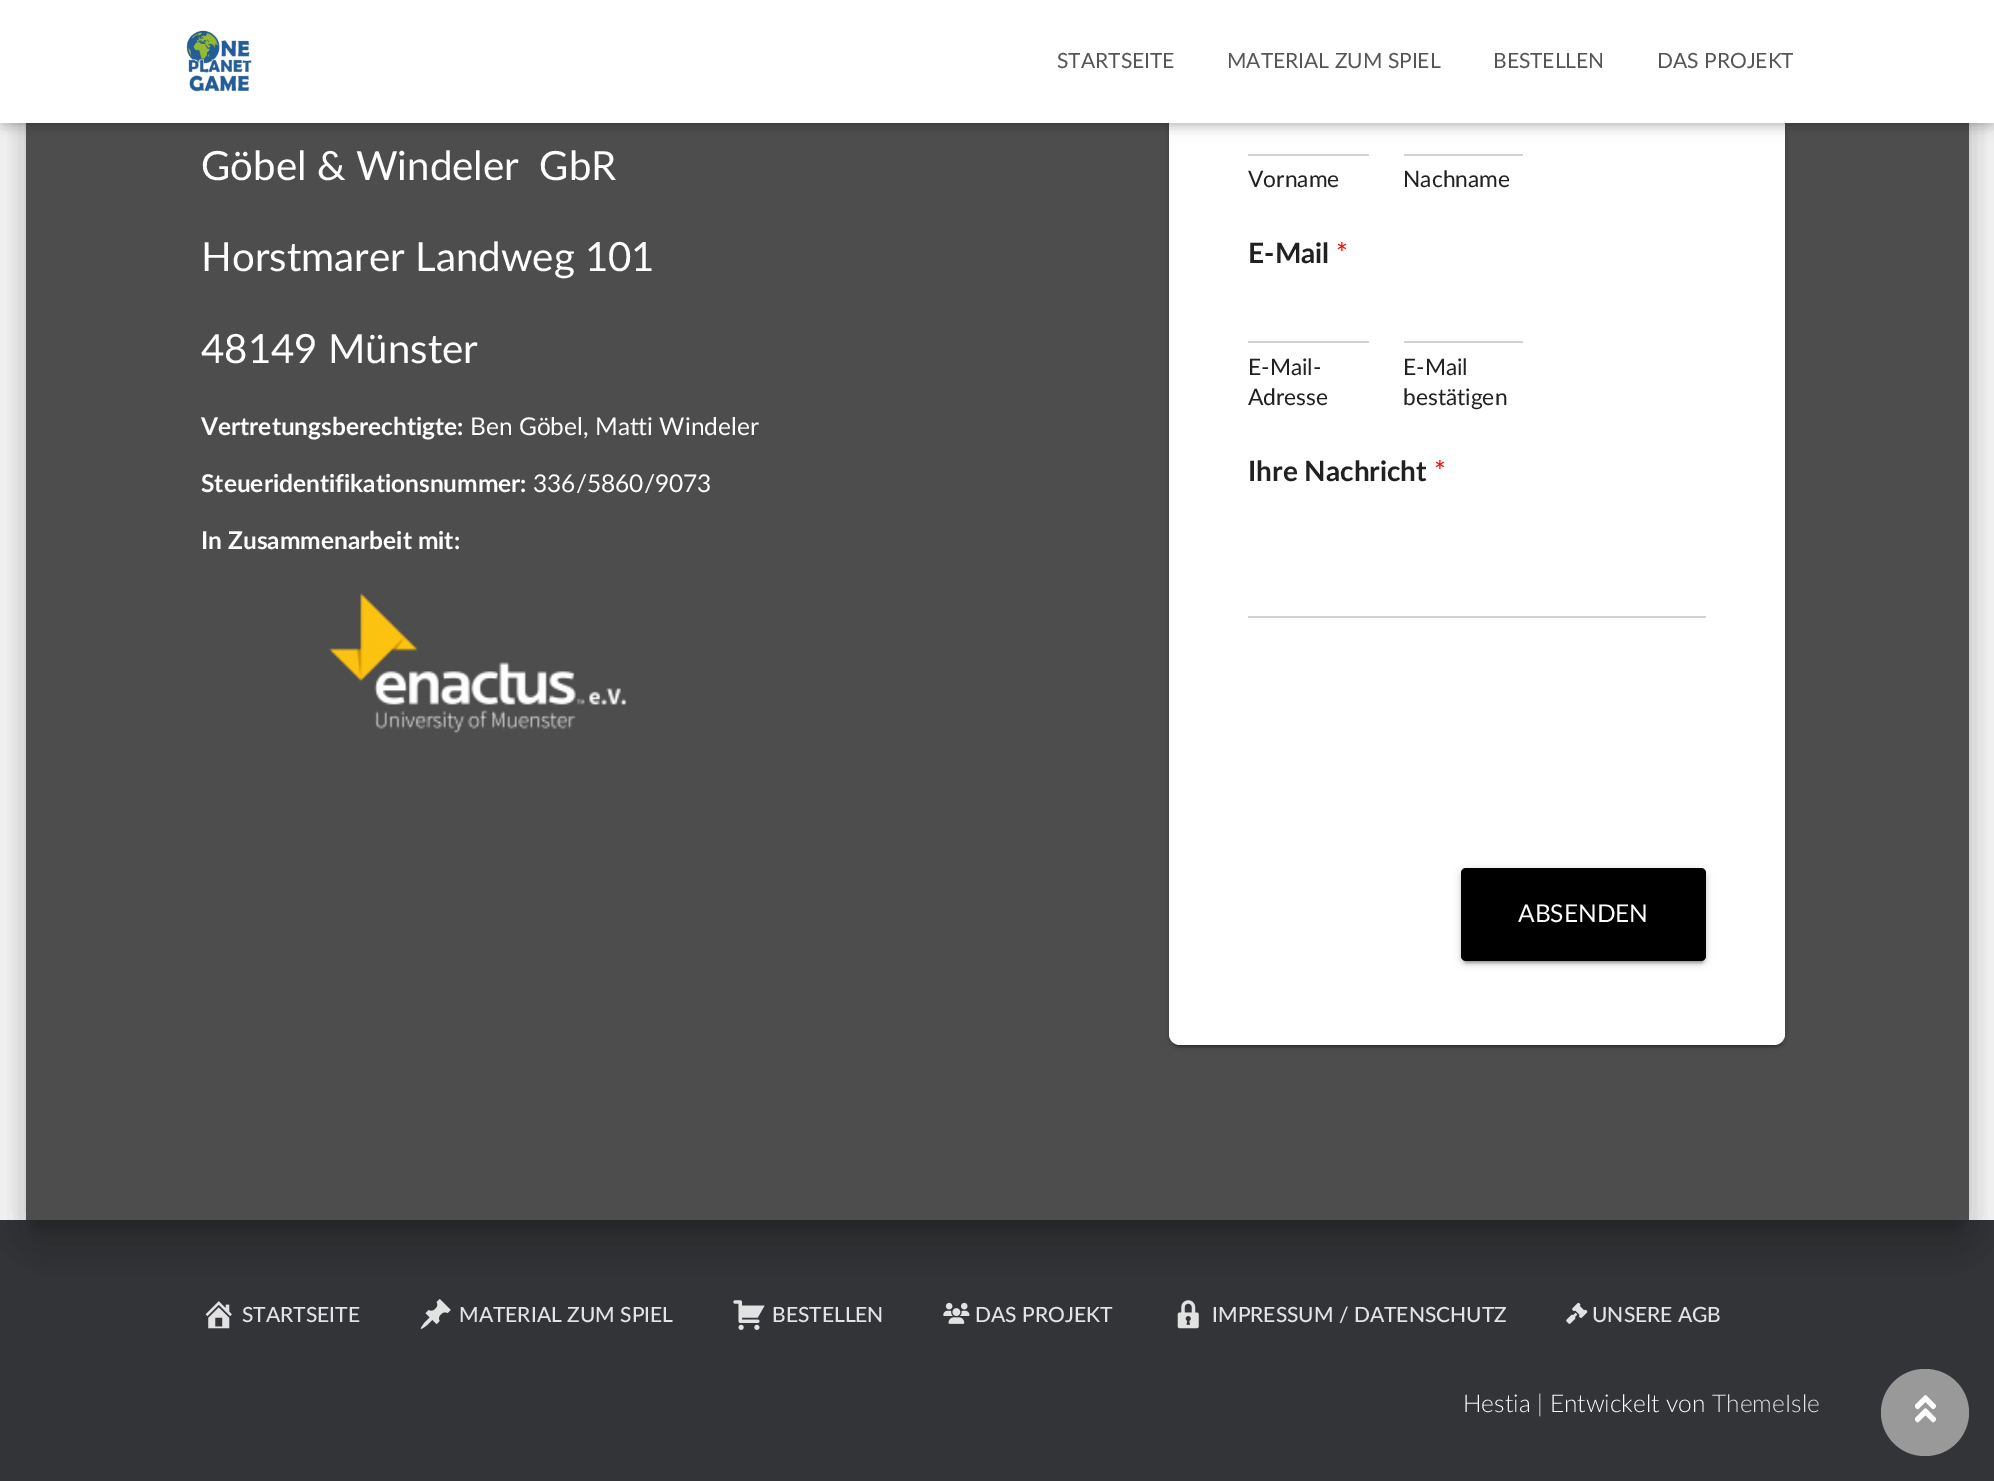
%!PS-Adobe-3.0
%%BoundingBox: 0 0 1994 1481
%%LanguageLevel: 3
%%Pages: 1
%%EndComments
%%BeginProlog
/f { fill } bind def
/fn { [ exch dup neg 0 0 3 -1 roll 0 0 ] selectfont } def
/tx { moveto show } def
/bx { rectfill } def
/al { dup .setfillconstantalpha .setstrokeconstantalpha } def
/rr { 5 dict begin { /r /h /w /y /x } { exch def } forall
  x r add y moveto x w add y 2 copy h add r arct x w add y h add x 1 index r arct
  x y h add x y r arct x y 2 copy exch w add exch r arct closepath end } def
/sh { 12 dict begin { /a /b /q /h /w /y /x } { exch def } forall gsave /was 0 def
  9 -2 -9 { dup b mul 4 div /e exch def 1 sub .425 mul 2.718 exch exp 1 add a .99 .min exch div /now exch def
    1 1 now sub 1 was sub div sub al /was now def
    w h .min e 2 mul add 0 gt { x e sub y e sub w e 2 mul add h e 2 mul add
      q e add b .6 mul add w h .min 2 div e add .min 0 .max rr fill } if } for grestore end } def
/im { 5 dict begin { /h /w /y /x /name } { exch def } forall
  gsave x y translate w h scale
  w h 8 [w 0 0 h 0 0] name (r) file false 3 colorimage grestore end } def
%%EndProlog
%%BeginSetup
<< /PageSize [1994 1481] /PageUsesTransparency true >> setpagedevice
%%EndSetup
%%Page: 1 1
0 .pushpdf14devicefilter
0 1481 translate 1 -1 scale
4 setmiterlimit
1 setgray
0 0 1994 1481 bx
0.196 0.204 0.216 setrgbcolor
0 1220 1994 261 bx
0 setgray
35 -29 1925 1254 2 9 0.2 sh
18 -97 1960 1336 19 26 0.12 sh
23 -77 1949 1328 14 21 0.14 sh
0.302 setgray
26 123 1943 1097 bx
0 setgray
1169 -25 616 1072 11 4.5 0.12 sh
1173 -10 609 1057 7 1 0.2 sh
1169 -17 616 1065 11 2 0.14 sh
1 setgray
1169 -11 616 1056 11 rr f
0 setgray
4 11 1988 115 0 4.5 0.1 sh
0 2 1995 122 0 9 0.12 sh
11 12 1974 102 0 9 0.42 sh
1 setgray
0 0 1994 123 bx
(image0.raw) 186 30 66 62 im
/Lato-Regular 21 fn
0.333 setgray
(STARTSEITE) 1057 68 tx
(MATERIAL ZUM SPIEL) 1227 68 tx
(BESTELLEN) 1493 68 tx
(DAS PROJEKT) 1657 68 tx
/Lato-Regular 40.25 fn
1 setgray
(Göbel & Windeler  GbR) 201 180 tx
(Horstmarer Landweg 101) 201 271 tx
(48149 Münster) 201 363 tx
/Lato-Bold 24.5 fn
(Vertretungsberechtigte:) 201 435 tx
/Lato-Regular 24.5 fn
(Ben Göbel, Matti Windeler) 470 435 tx
/Lato-Bold 24.5 fn
(Steueridentifikationsnummer:) 201 492 tx
/Lato-Regular 24.5 fn
(336/5860/9073) 533 492 tx
/Lato-Bold 24.5 fn
(In Zusammenarbeit mit:) 201 549 tx
(image1.raw) 329 593 298 141 im
0.824 setgray
1248 154 121 2 bx
/Lato-Regular 22.75 fn
0.129 setgray
(Vorname) 1248 187 tx
0.824 setgray
1404 154 119 2 bx
0.129 setgray
(Nachname) 1403 187 tx
/Lato-Bold 28 fn
(E-Mail) 1248 263 tx
/Lato-Regular 28 fn
1 0 0 setrgbcolor
(*) 1336 263 tx
0.824 setgray
1248 341 121 2 bx
/Lato-Regular 22.75 fn
0.129 setgray
(E-Mail-) 1248 375 tx
(Adresse) 1248 405 tx
0.824 setgray
1404 341 119 2 bx
0.129 setgray
(E-Mail) 1403 375 tx
(bestätigen) 1403 405 tx
/Lato-Bold 28 fn
(Ihre Nachricht) 1248 481 tx
/Lato-Regular 28 fn
1 0 0 setrgbcolor
(*) 1434 481 tx
0.824 setgray
1248 616 458 2 bx
0 setgray
1461 870 245 93 5 4.5 0.12 sh
1465 877 238 86 2 1 0.2 sh
1461 872 245 92 5 2 0.14 sh
1461 868 245 93 5 rr f
/Lato-Regular 24.5 fn
1 setgray
(ABSENDEN) 1518 922 tx
(image2.raw) 205 1301 27 28 im
/Lato-Medium 21 fn
0.886 0.89 0.89 setrgbcolor
(STARTSEITE) 242 1322 tx
(image3.raw) 420 1299 31 30 im
(MATERIAL ZUM SPIEL) 459 1322 tx
(image4.raw) 733 1300 32 30 im
(BESTELLEN) 772 1322 tx
(image5.raw) 943 1302 27 22 im
(DAS PROJEKT) 975 1322 tx
(image6.raw) 1177 1300 22 29 im
(IMPRESSUM / DATENSCHUTZ) 1212 1322 tx
(image7.raw) 1566 1302 22 22 im
(UNSERE AGB) 1592 1322 tx
/Lato-Light 24.5 fn
1 setgray
(Hestia | Entwickelt von) 1463 1412 tx
0.886 0.89 0.89 setrgbcolor
(ThemeIsle) 1712 1412 tx
0.6 setgray
1881 1369 88 87 43.5 rr f
(image8.raw) 1915 1395 21 28 im
.poppdf14devicefilter showpage
%%EOF
